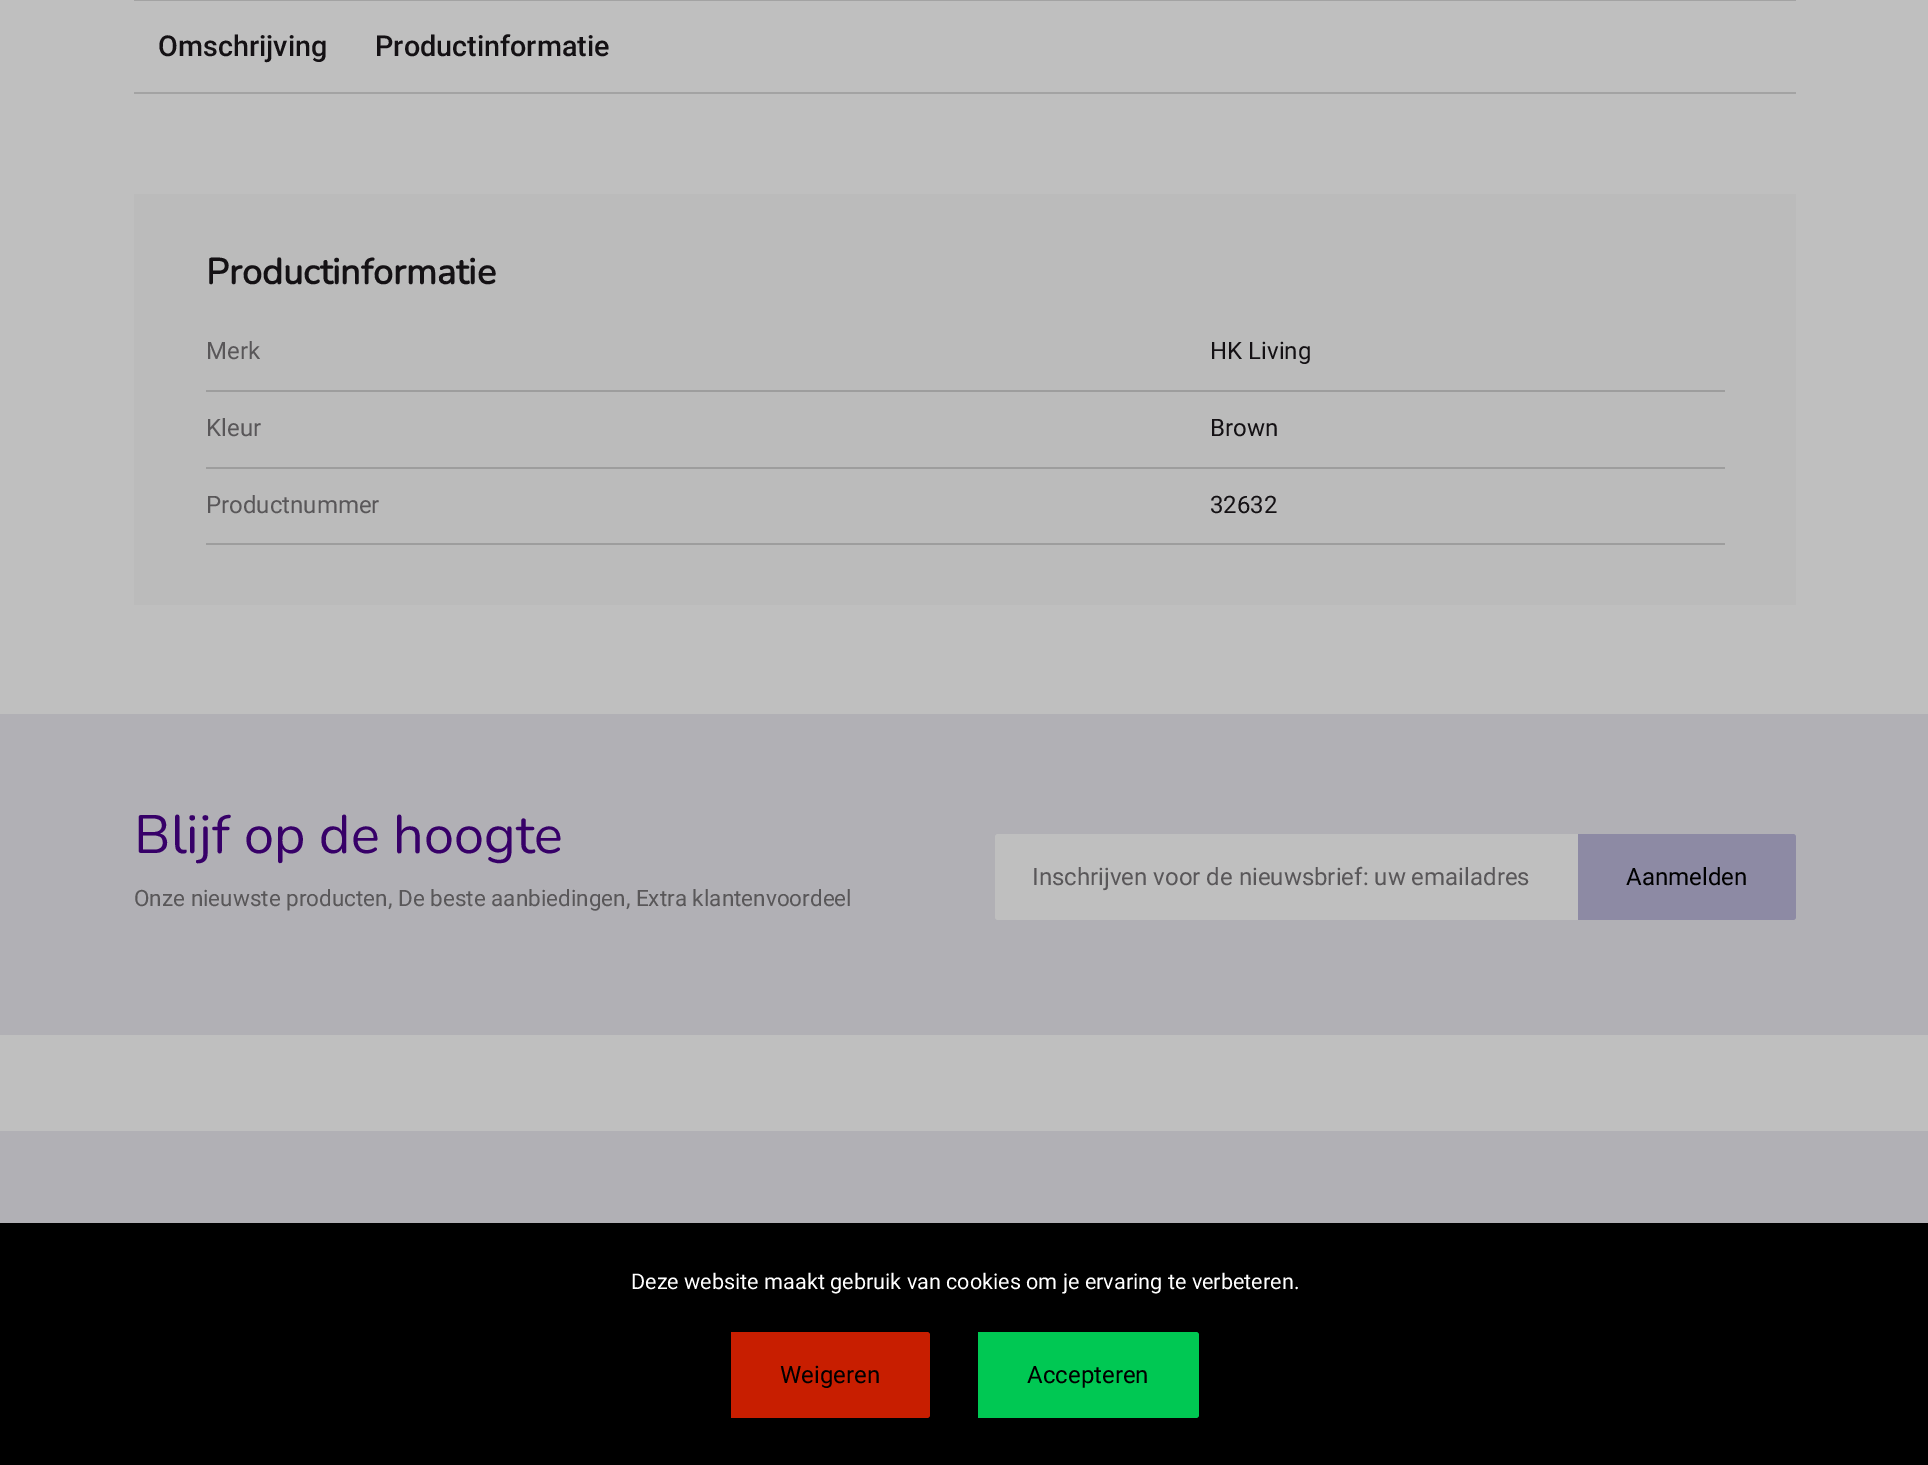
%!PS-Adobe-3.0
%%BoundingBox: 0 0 1928 1465
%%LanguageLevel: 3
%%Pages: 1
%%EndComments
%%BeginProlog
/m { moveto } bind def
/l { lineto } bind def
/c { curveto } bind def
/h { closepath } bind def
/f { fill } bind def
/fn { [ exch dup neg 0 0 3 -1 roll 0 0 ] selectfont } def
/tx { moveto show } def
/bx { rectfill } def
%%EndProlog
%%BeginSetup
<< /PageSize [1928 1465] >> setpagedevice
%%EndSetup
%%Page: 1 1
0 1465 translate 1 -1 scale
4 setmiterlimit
0.749 setgray
0 0 1928 1465 bx
0.639 setgray
134 0 1662 1 bx
/Roboto-Medium 28.75 fn
0.078 0.067 0.078 setrgbcolor
(Omschrijving) 158 56 tx
(Productinformatie) 375 56 tx
0.639 setgray
134 92 1662 2 bx
0.733 setgray
134 194 1662 411 bx
/Nunito-Bold 36 fn
0.078 0.067 0.078 setrgbcolor
(Productinformatie) 206 284 tx
0.616 setgray
206 390 1519 2 bx
/Roboto-Regular 24 fn
0.349 0.341 0.349 setrgbcolor
(Merk) 206 359 tx
0.078 0.067 0.078 setrgbcolor
(HK Living) 1210 359 tx
0.616 setgray
206 467 1519 2 bx
0.349 0.341 0.349 setrgbcolor
(Kleur) 206 436 tx
0.078 0.067 0.078 setrgbcolor
(Brown) 1210 436 tx
0.616 setgray
206 543 1519 2 bx
0.349 0.341 0.349 setrgbcolor
(Productnummer) 206 513 tx
0.078 0.067 0.078 setrgbcolor
(32632) 1210 513 tx
0.694 0.69 0.71 setrgbcolor
0 714 1928 321 bx
/Nunito-ExtraLight 54 fn
0.216 0 0.408 setrgbcolor
(Blijf op de hoogte) 134 853 tx
/Roboto-Regular 22.5 fn
0.349 0.341 0.349 setrgbcolor
(Onze nieuwste producten, De beste aanbiedingen, Extra klantenvoordeel) 134 906 tx
0.749 setgray
998 834 m 1578 834 l 1578 920 l 998 920 l 996.5 920 995 918.5 995 917 c 995 837 l 995 835.5 996.5 834 998 834 c h f
/Roboto-Regular 24 fn
0.349 0.341 0.349 setrgbcolor
(Inschrijven voor de nieuwsbrief: uw emailadres) 1032 885 tx
0.553 0.541 0.643 setrgbcolor
1578 834 m 1793 834 l 1794.5 834 1796 835.5 1796 837 c 1796 917 l 1796 918.5 1794.5 920 1793 920 c 1578 920 l h f
0 setgray
(Aanmelden) 1626 885 tx
0.694 0.69 0.71 setrgbcolor
0 1131 1928 92 bx
0 setgray
0 1223 1928 242 bx
/Roboto-Regular 21.6 fn
1 setgray
(Deze website maakt gebruik van cookies om je ervaring te verbeteren.) 631 1289 tx
0.784 0.118 0 setrgbcolor
731 1332 m 927 1332 l 928.5 1332 930 1333.5 930 1335 c 930 1415 l 930 1416.5 928.5 1418 927 1418 c 731 1418 l h f
/Roboto-Regular 24 fn
0 setgray
(Weigeren) 780 1383 tx
0 0.784 0.325 setrgbcolor
978 1332 m 1196 1332 l 1197.5 1332 1199 1333.5 1199 1335 c 1199 1415 l 1199 1416.5 1197.5 1418 1196 1418 c 978 1418 l h f
0 setgray
(Accepteren) 1027 1383 tx
showpage
%%EOF
